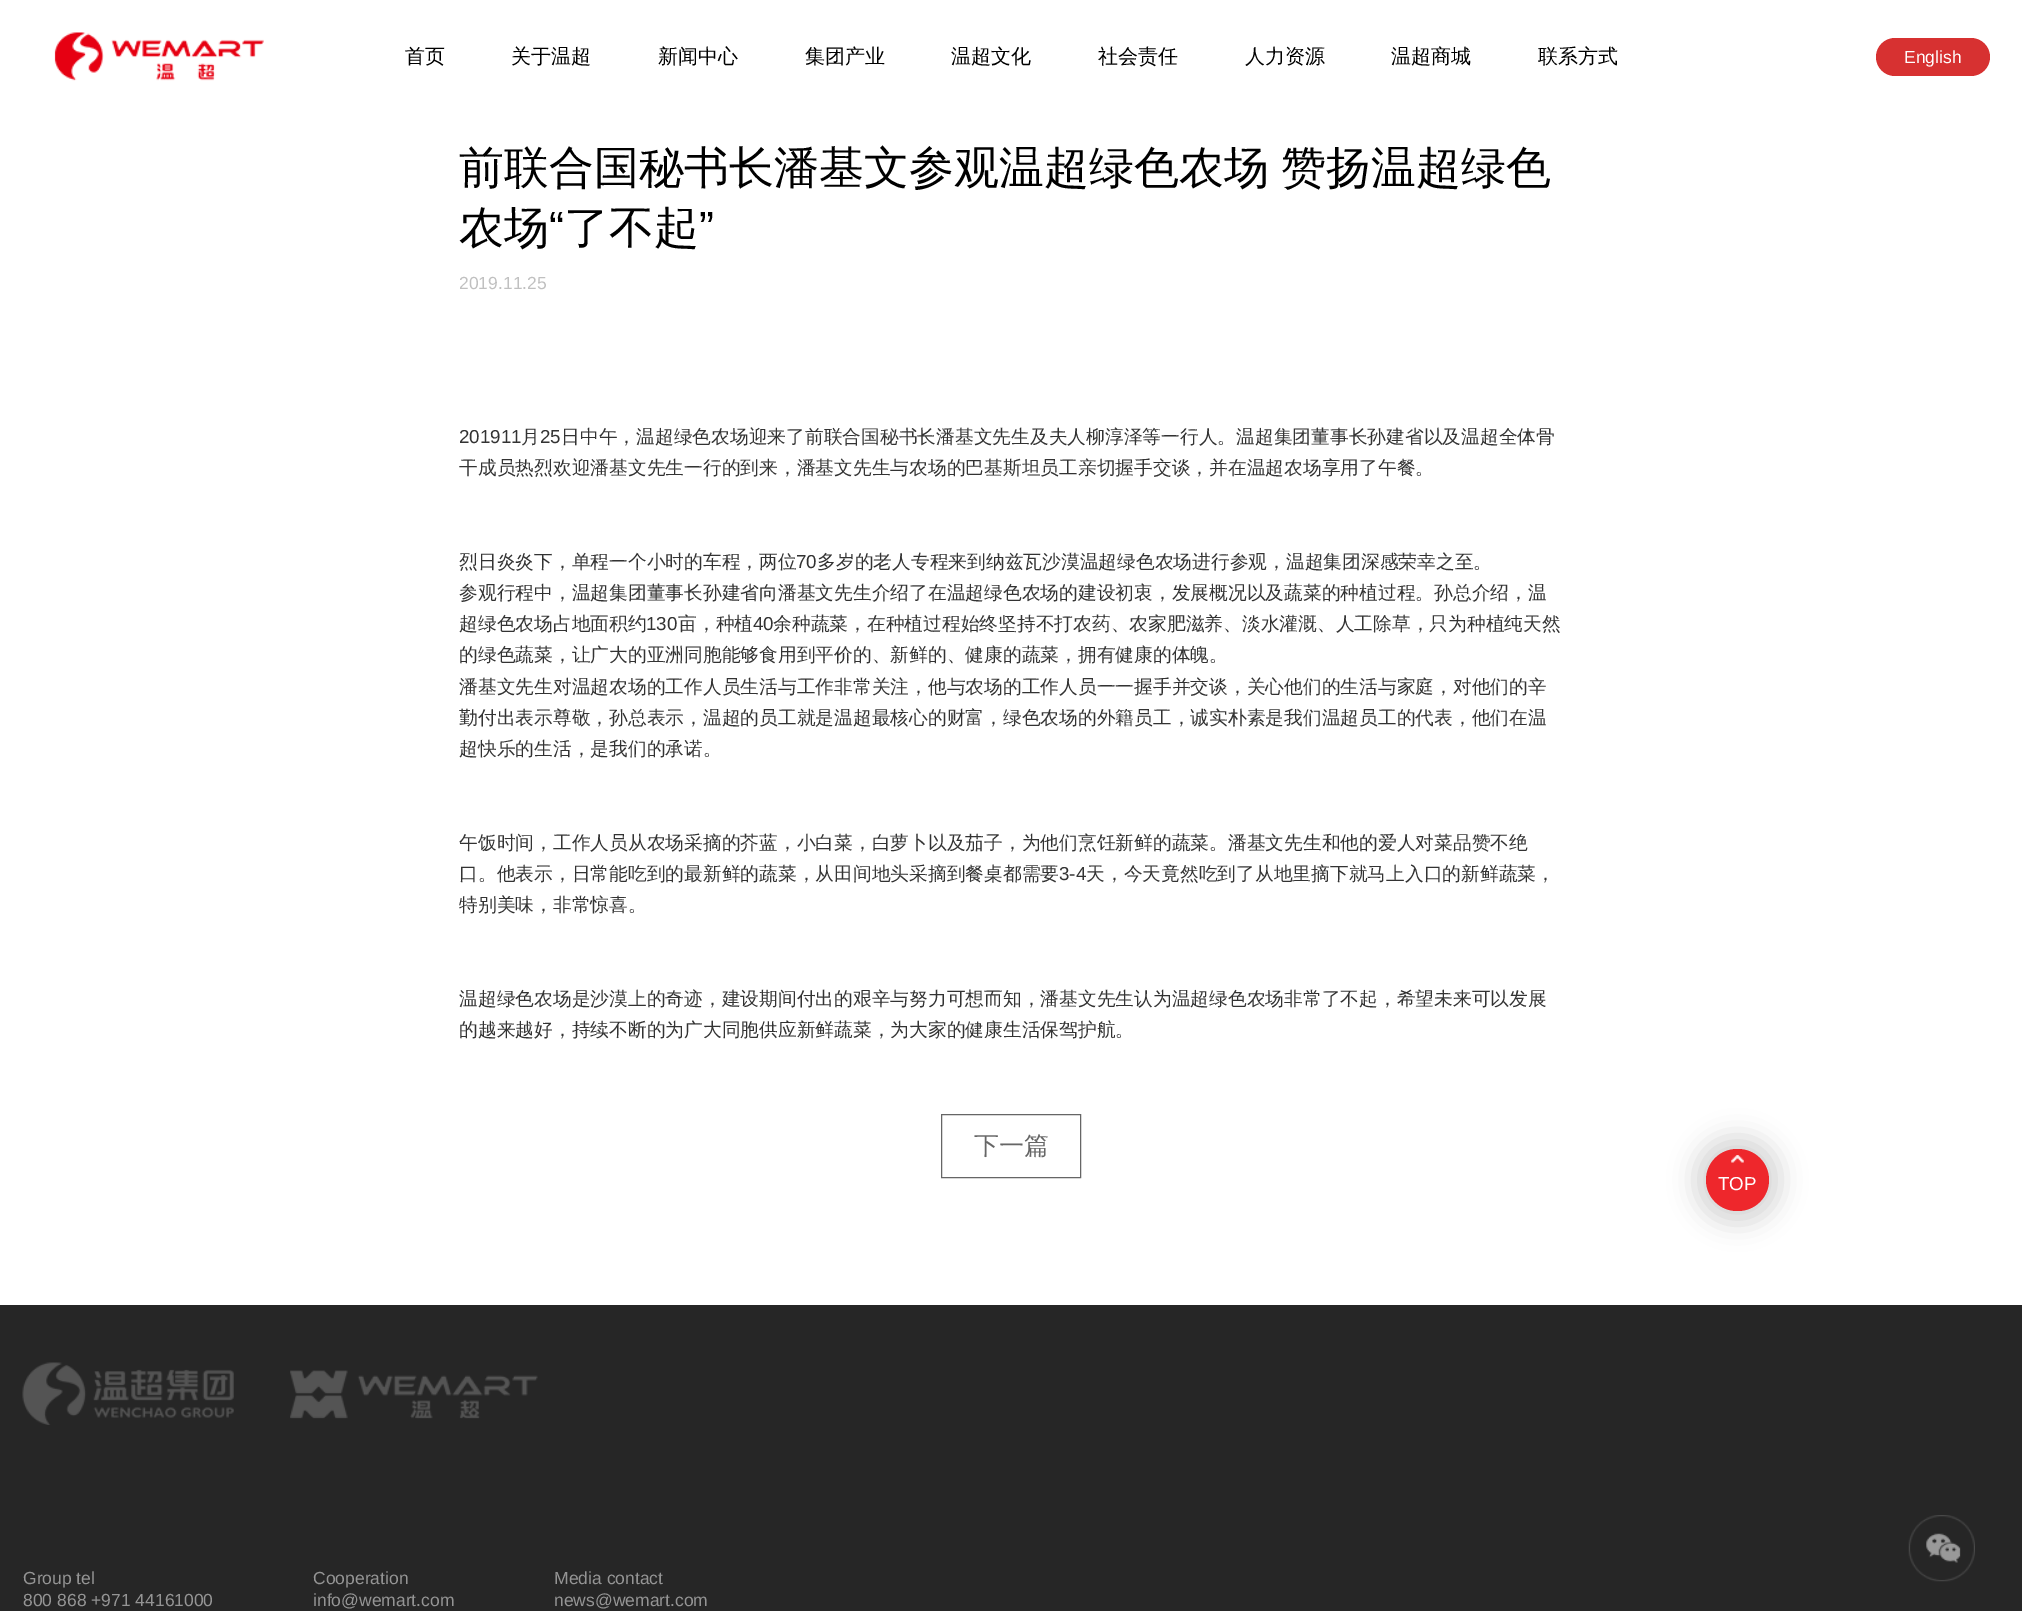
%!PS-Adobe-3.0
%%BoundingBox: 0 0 2022 1611
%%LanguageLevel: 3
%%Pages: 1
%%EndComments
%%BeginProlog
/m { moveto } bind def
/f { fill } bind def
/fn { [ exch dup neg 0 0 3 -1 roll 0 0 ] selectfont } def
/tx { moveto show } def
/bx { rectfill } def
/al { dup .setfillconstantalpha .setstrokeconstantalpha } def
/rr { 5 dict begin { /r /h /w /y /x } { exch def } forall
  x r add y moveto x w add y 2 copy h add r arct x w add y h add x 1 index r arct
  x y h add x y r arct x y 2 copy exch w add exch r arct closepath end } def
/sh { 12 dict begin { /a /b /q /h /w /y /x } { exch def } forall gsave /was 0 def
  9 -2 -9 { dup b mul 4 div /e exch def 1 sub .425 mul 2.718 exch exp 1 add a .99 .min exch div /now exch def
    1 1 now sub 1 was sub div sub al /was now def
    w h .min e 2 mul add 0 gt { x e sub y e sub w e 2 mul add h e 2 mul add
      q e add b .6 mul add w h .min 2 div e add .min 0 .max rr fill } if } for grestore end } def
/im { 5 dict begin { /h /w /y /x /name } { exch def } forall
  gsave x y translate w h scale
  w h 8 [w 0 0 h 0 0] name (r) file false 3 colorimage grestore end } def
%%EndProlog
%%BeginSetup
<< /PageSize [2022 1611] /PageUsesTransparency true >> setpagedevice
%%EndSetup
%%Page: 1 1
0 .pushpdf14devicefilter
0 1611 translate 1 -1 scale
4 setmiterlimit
1 setgray
0 0 2022 1611 bx
(image0.raw) 54 32 210 49 im
/WenQuanYiZenHei-Medium 20 fn
0 setgray
(首页) 405 63 tx
(关于温超) 511 63 tx
(新闻中心) 658 63 tx
(集团产业) 805 63 tx
(温超文化) 951 63 tx
(社会责任) 1098 63 tx
(人力资源) 1245 63 tx
(温超商城) 1391 63 tx
(联系方式) 1538 63 tx
0.843 0.192 0.192 setrgbcolor
1876 38 114 38 19 rr f
/LiberationSans-Regular 17.5 fn
1 setgray
(English) 1904 63 tx
/WenQuanYiZenHei-Medium 45 fn
0 setgray
459 183 m -1 0 32 (前联合国秘书长潘基文参观温超绿色农场 赞扬温超绿色) widthshow
(农场) 459 243 tx
/LiberationSans-Regular 45 fn
(“) 549 243 tx
/WenQuanYiZenHei-Medium 45 fn
(了不起) 564 243 tx
/LiberationSans-Regular 45 fn
(”) 699 243 tx
/LiberationSans-Regular 17.5 fn
0.753 setgray
(2019.11.25) 459 289 tx
/LiberationSans-Regular 18.75 fn
0.2 setgray
(201911) 459 443 tx
/WenQuanYiZenHei-Medium 18.75 fn
(月) 521 443 tx
/LiberationSans-Regular 18.75 fn
(25) 540 443 tx
/WenQuanYiZenHei-Medium 18.75 fn
(日中午，温超绿色农场迎来了前联合国秘书长潘基文先生及夫人柳淳泽等一行人。温超集团董事长孙建省以及温超全体骨) 561 443 tx
(干成员热烈欢迎潘基文先生一行的到来，潘基文先生与农场的巴基斯坦员工亲切握手交谈，并在温超农场享用了午餐。) 459 474 tx
(烈日炎炎下，单程一个小时的车程，两位) 459 568 tx
/LiberationSans-Regular 18.75 fn
(70) 796 568 tx
/WenQuanYiZenHei-Medium 18.75 fn
(多岁的老人专程来到纳兹瓦沙漠温超绿色农场进行参观，温超集团深感荣幸之至。) 817 568 tx
(参观行程中，温超集团董事长孙建省向潘基文先生介绍了在温超绿色农场的建设初衷，发展概况以及蔬菜的种植过程。孙总介绍，温) 459 599 tx
(超绿色农场占地面积约) 459 630 tx
/LiberationSans-Regular 18.75 fn
(130) 646 630 tx
/WenQuanYiZenHei-Medium 18.75 fn
(亩，种植) 678 630 tx
/LiberationSans-Regular 18.75 fn
(40) 753 630 tx
/WenQuanYiZenHei-Medium 18.75 fn
(余种蔬菜，在种植过程始终坚持不打农药、农家肥滋养、淡水灌溉、人工除草，只为种植纯天然) 773 630 tx
(的绿色蔬菜，让广大的亚洲同胞能够食用到平价的、新鲜的、健康的蔬菜，拥有健康的体魄。) 459 661 tx
(潘基文先生对温超农场的工作人员生活与工作非常关注，他与农场的工作人员一一握手并交谈，关心他们的生活与家庭，对他们的辛) 459 693 tx
(勤付出表示尊敬，孙总表示，温超的员工就是温超最核心的财富，绿色农场的外籍员工，诚实朴素是我们温超员工的代表，他们在温) 459 724 tx
(超快乐的生活，是我们的承诺。) 459 755 tx
(午饭时间，工作人员从农场采摘的芥蓝，小白菜，白萝卜以及茄子，为他们烹饪新鲜的蔬菜。潘基文先生和他的爱人对菜品赞不绝) 459 849 tx
(口。他表示，日常能吃到的最新鲜的蔬菜，从田间地头采摘到餐桌都需要) 459 880 tx
/LiberationSans-Regular 18.75 fn
(3-4) 1059 880 tx
/WenQuanYiZenHei-Medium 18.75 fn
(天，今天竟然吃到了从地里摘下就马上入口的新鲜蔬菜，) 1086 880 tx
(特别美味，非常惊喜。) 459 911 tx
(温超绿色农场是沙漠上的奇迹，建设期间付出的艰辛与努力可想而知，潘基文先生认为温超绿色农场非常了不起，希望未来可以发展) 459 1005 tx
(的越来越好，持续不断的为广大同胞供应新鲜蔬菜，为大家的健康生活保驾护航。) 459 1036 tx
0.4 setgray
941.5 1114.5 139 63 rectstroke
/WenQuanYiZenHei-Medium 25 fn
(下一篇) 974 1154 tx
0.839 setgray
1694 1136 87 88 43.5 12.5 1 sh
0.933 0.153 0.173 setrgbcolor
1706 1149 63 62 31 rr f
(image1.raw) 1731 1155 13 8 im
/LiberationSans-Regular 18.75 fn
1 setgray
(TOP) 1718 1190 tx
0.149 setgray
0 1305 2022 306 bx
(image2.raw) 22 1362 212 63 im
(image3.raw) 290 1370 248 49 im
(image4.raw) 1908 1515 67 67 im
/LiberationSans-Regular 17.5 fn
0.58 setgray
(Group tel) 23 1584 tx
(800 868 +971 44161000) 23 1606 tx
(Cooperation) 313 1584 tx
(info@wemart.com) 313 1606 tx
(Media contact) 554 1584 tx
(news@wemart.com) 554 1606 tx
.poppdf14devicefilter showpage
%%EOF
